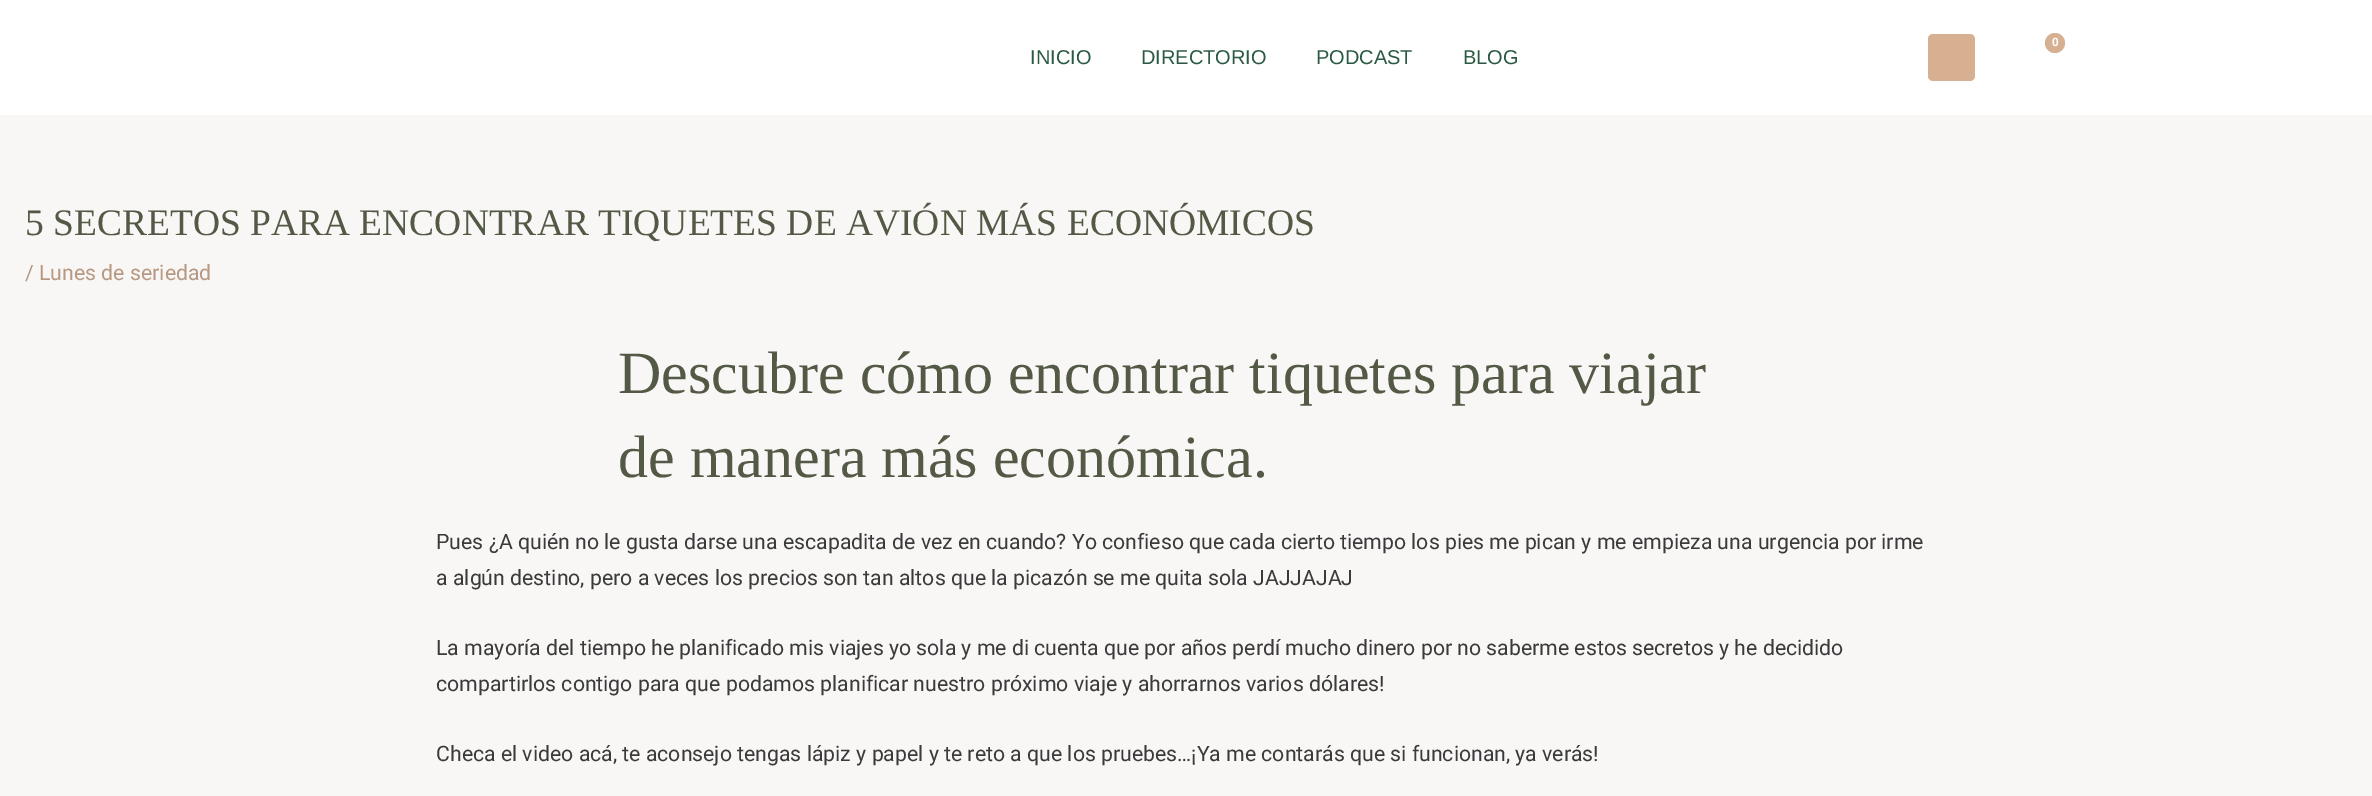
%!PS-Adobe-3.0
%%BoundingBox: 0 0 2372 796
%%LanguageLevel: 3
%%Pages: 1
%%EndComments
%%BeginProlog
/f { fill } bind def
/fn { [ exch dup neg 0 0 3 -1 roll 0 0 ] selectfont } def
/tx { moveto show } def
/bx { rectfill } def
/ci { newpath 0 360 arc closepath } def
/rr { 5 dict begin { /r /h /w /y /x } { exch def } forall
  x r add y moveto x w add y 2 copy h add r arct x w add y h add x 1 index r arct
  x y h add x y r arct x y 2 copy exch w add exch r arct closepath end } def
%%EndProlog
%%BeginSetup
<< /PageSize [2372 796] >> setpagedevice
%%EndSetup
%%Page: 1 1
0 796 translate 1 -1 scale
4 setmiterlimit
0.976 0.969 0.965 setrgbcolor
0 0 2372 796 bx
1 setgray
0 0 2372 115 bx
0.843 0.69 0.573 setrgbcolor
1928 34 47 47 5 rr f
2055 43 10 ci f
/LiberationSans-Bold 12 fn
1 setgray
(0) 2052 46 tx
/LiberationSans-Regular 20 fn
0.169 0.353 0.259 setrgbcolor
(INICIO) 1030 64 tx
(DIRECTORIO) 1141 64 tx
(PODCAST) 1316 64 tx
(BLOG) 1463 64 tx
/LiberationSerif-Regular 37.5 fn
0.325 0.349 0.271 setrgbcolor
(5 SECRETOS PARA ENCONTRAR TIQUETES DE AVIÓN MÁS ECONÓMICOS) 25 235 tx
/Roboto-Regular 21.25 fn
0.718 0.596 0.514 setrgbcolor
(/ Lunes de seriedad) 25 280 tx
/LiberationSerif-Regular 60 fn
0.325 0.349 0.271 setrgbcolor
(Descubre cómo encontrar tiquetes para viajar) 618 393 tx
(de manera más económica.) 618 477 tx
/Roboto-Regular 21.25 fn
0.227 setgray
(Pues ¿A quién no le gusta darse una escapadita de vez en cuando? Yo confieso que cada cierto tiempo los pies me pican y me empieza una urgencia por irme) 436 549 tx
(a algún destino, pero a veces los precios son tan altos que la picazón se me quita sola JAJJAJAJ) 436 585 tx
(La mayoría del tiempo he planificado mis viajes yo sola y me di cuenta que por años perdí mucho dinero por no saberme estos secretos y he decidido) 436 655 tx
(compartirlos contigo para que podamos planificar nuestro próximo viaje y ahorrarnos varios dólares!) 436 691 tx
(Checa el video acá, te aconsejo tengas lápiz y papel y te reto a que los pruebes…¡Ya me contarás que si funcionan, ya verás!) 436 761 tx
showpage
%%EOF
